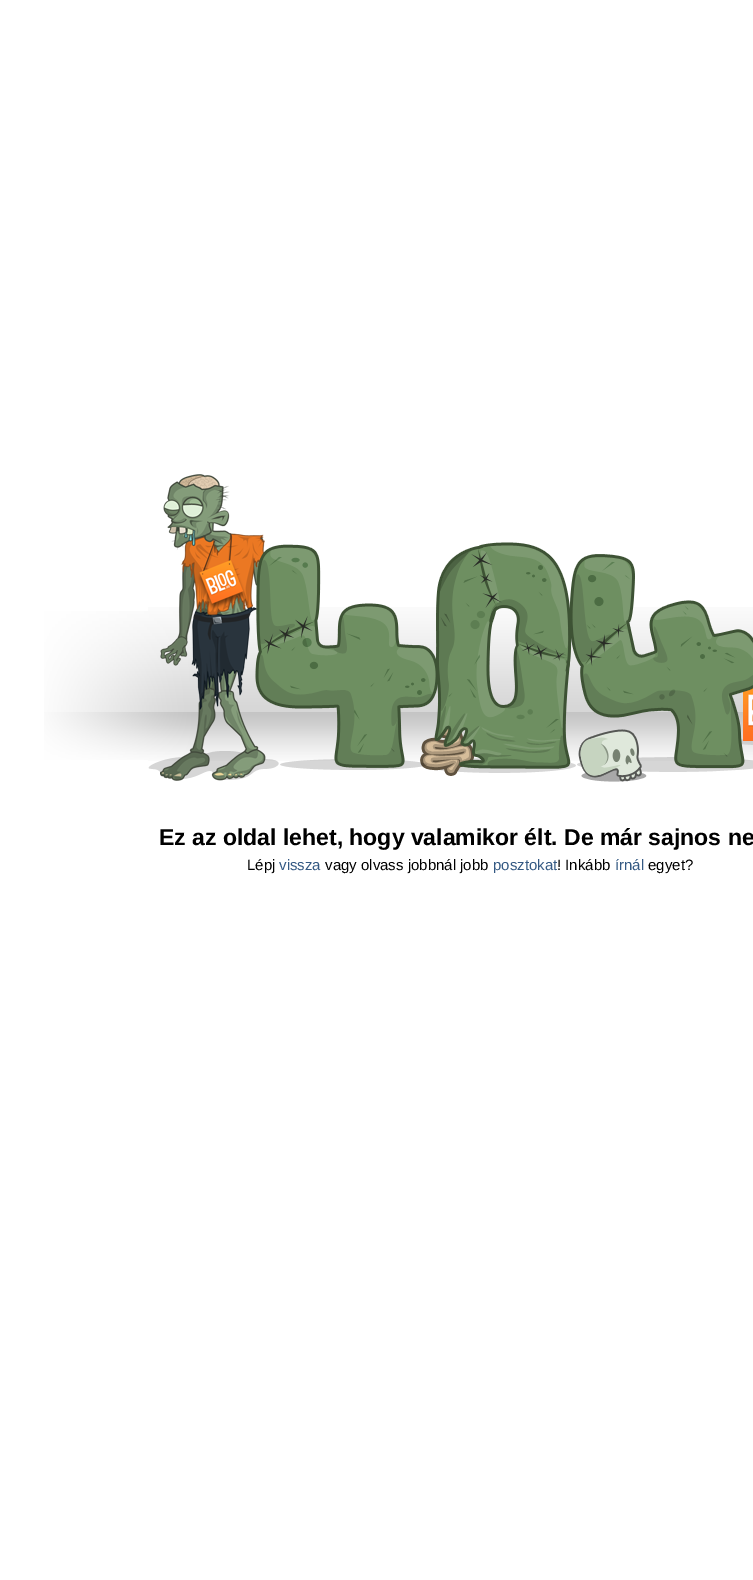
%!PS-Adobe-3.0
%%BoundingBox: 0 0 753 1580
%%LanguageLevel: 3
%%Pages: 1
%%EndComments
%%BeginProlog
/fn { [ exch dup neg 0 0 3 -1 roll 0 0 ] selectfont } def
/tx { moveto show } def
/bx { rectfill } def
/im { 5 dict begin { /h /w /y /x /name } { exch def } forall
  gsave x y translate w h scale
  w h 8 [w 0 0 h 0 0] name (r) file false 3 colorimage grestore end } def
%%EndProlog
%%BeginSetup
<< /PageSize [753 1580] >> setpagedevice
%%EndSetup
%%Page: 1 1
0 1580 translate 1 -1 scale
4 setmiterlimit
1 setgray
0 0 753 1580 bx
(image4.raw) 44 611 709 149 im
(image0.raw) 148 474 131 307 im
(image5.raw) 741 688 12 57 im
(image3.raw) 569 554 184 218 im
(image2.raw) 420 542 156 234 im
(image1.raw) 255 544 183 226 im
(image6.raw) 578 729 69 53 im
/LiberationSans-Bold 23 fn
0 setgray
(Ez az oldal lehet, hogy valamikor élt. De már sajnos ne) 159 845 tx
/LiberationSans-Regular 15 fn
(Lépj) 247 870 tx
0.204 0.349 0.514 setrgbcolor
(vissza) 279 870 tx
0 setgray
(vagy olvass jobbnál jobb) 325 870 tx
0.204 0.349 0.514 setrgbcolor
(posztokat) 493 870 tx
0 setgray
(! Inkább) 557 870 tx
0.204 0.349 0.514 setrgbcolor
(írnál) 615 870 tx
0 setgray
(egyet?) 648 870 tx
showpage
%%EOF
